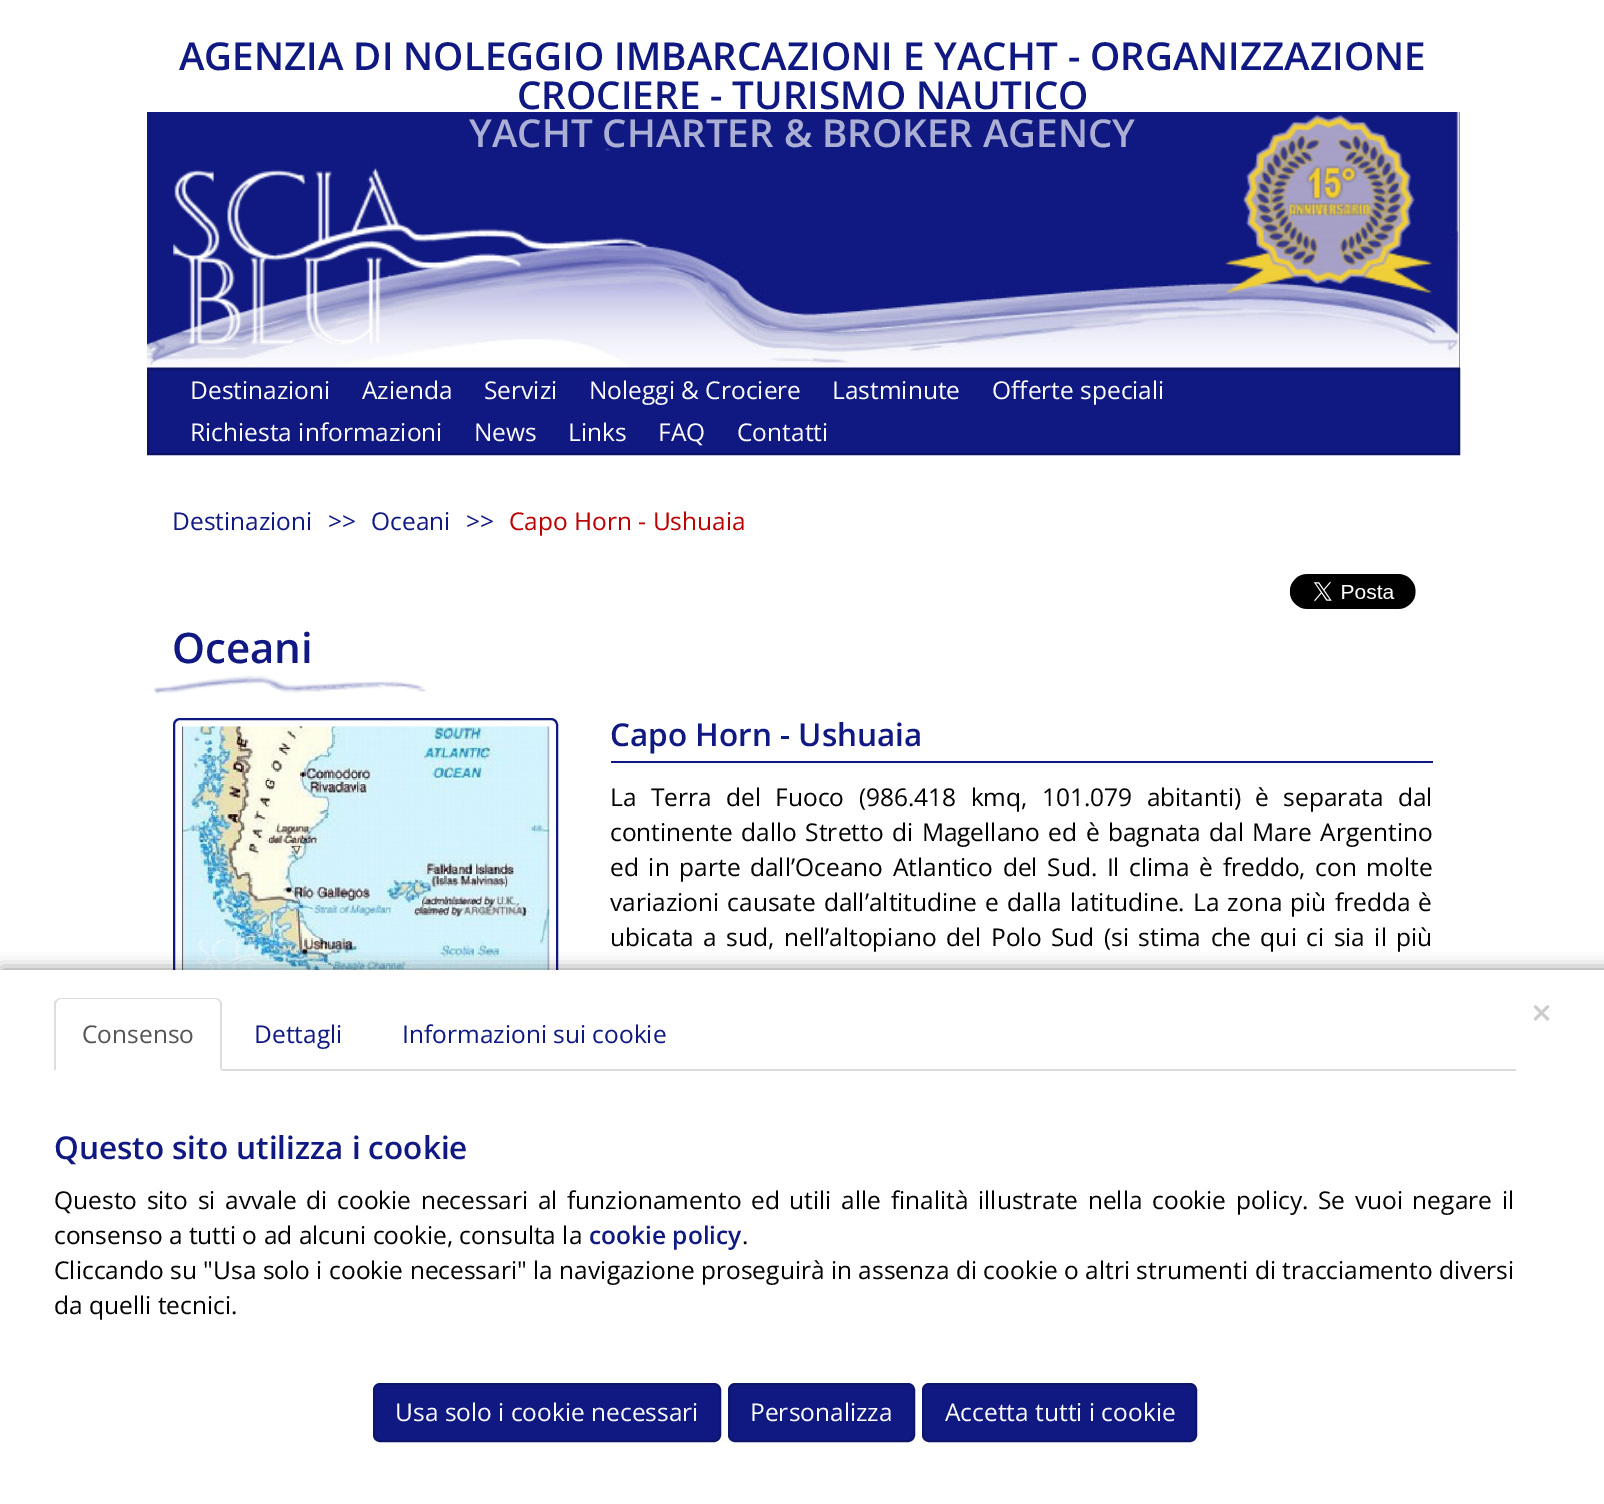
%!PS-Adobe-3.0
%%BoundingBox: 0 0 1604 1504
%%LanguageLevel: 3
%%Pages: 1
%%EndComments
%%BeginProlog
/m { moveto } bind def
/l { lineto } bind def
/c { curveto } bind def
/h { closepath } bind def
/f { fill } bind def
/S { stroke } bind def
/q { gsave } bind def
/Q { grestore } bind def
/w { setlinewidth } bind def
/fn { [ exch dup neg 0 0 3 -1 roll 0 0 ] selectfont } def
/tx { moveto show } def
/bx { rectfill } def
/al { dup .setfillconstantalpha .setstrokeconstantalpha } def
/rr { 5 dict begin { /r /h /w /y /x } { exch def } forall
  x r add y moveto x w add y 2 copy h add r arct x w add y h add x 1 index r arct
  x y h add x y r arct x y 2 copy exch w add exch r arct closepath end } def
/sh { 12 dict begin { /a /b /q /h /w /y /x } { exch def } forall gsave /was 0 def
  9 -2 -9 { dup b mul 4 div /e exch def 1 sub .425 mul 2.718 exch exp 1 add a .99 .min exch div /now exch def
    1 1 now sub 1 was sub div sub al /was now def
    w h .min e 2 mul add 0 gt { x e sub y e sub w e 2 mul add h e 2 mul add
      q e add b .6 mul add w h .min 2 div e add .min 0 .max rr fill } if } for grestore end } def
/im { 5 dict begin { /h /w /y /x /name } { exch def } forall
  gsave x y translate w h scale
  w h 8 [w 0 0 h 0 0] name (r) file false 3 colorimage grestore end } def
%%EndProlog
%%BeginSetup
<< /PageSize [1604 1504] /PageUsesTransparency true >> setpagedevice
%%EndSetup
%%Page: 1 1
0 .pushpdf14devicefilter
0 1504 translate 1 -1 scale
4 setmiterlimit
1 setgray
0 0 1604 1504 bx
0.063 0.098 0.51 setrgbcolor
147 112 1313 256 bx
(image0.raw) 147 112 1313 256 im
/OpenSans-SemiBold 38.5 fn
(AGENZIA DI NOLEGGIO IMBARCAZIONI E YACHT - ORGANIZZAZIONE) 179 70 tx
(CROCIERE - TURISMO NAUTICO) 517 109 tx
0.671 0.686 0.827 setrgbcolor
(YACHT CHARTER & BROKER AGENCY) 469 147 tx
(image1.raw) 1224 115 208 180 im
(image2.raw) 173 148 475 197 im
0.063 0.098 0.51 setrgbcolor
148 369 m 1459 369 l 1459 454 l 148 454 l h q f Q
0.047 0.075 0.392 setrgbcolor
2 w
S
/OpenSans-Regular 24.5 fn
1 setgray
(Destinazioni) 190 399 tx
(Azienda) 362 399 tx
(Servizi) 484 399 tx
(Noleggi & Crociere) 589 399 tx
(Lastminute) 832 399 tx
(Offerte speciali) 992 399 tx
(Richiesta informazioni) 190 441 tx
(News) 474 441 tx
(Links) 568 441 tx
(FAQ) 658 441 tx
(Contatti) 737 441 tx
0.063 0.098 0.51 setrgbcolor
(Destinazioni) 172 530 tx
(>>) 328 530 tx
(Oceani) 371 530 tx
(>>) 466 530 tx
0.729 0 0 setrgbcolor
(Capo Horn - Ushuaia) 509 530 tx
(image3.raw) 1289 574 127 35 im
(image4.raw) 153 675 273 19 im
/OpenSans-SemiBold 42 fn
0.063 0.098 0.51 setrgbcolor
(Oceani) 172 663 tx
174 719 383 290 6 rr S
(image5.raw) 182 726 368 244 im
611 761 822 2 bx
/OpenSans-SemiBold 31.5 fn
(Capo Horn - Ushuaia) 610 746 tx
/OpenSans-Regular 24.5 fn
0 setgray
610 806 m 8 0 32 (La Terra del Fuoco \(986.418 kmq, 101.079 abitanti\) è separata dal) widthshow
610 841 m 2.1 0 32 (continente dallo Stretto di Magellano ed è bagnata dal Mare Argentino) widthshow
610 876 m 3.25 0 32 (ed in parte dall’Oceano Atlantico del Sud. Il clima è freddo, con molte) widthshow
610 911 m 1.75 0 32 (variazioni causate dall’altitudine e dalla latitudine. La zona più fredda è) widthshow
610 946 m 3.1 0 32 (ubicata a sud, nell’altopiano del Polo Sud \(si stima che qui ci sia il più) widthshow
2 970 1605 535 0 8 0.45 sh
1 setgray
0 970 1604 534 bx
/OpenSans-SemiBold 37 fn
0.8 setgray
(×) 1531 1026 tx
0.867 setgray
222 1069 1294 2 bx
61 998 m 59 998 58 999 56 1000 c 57 1001 l 60 999 l 215 999 l 217 999 218 1000 219 1001 c 220 1000 l 219 999 217 998 215 998 c h f
222 1071 m 222 1003 l 220 1000 l 219 1001 l 220 1002 220 1003 220 1004 c 220 1069 l h f
54 1071 m 56 1069 l 56 1004 l 56 1003 57 1002 57 1001 c 56 1000 l 54 1002 l h f
/OpenSans-Regular 24.5 fn
0.333 setgray
(Consenso) 82 1043 tx
0.063 0.098 0.51 setrgbcolor
(Dettagli) 254 1043 tx
(Informazioni sui cookie) 402 1043 tx
/OpenSans-SemiBold 31.5 fn
(Questo sito utilizza i cookie) 54 1159 tx
/OpenSans-Regular 24.5 fn
0 setgray
54 1209 m 3.25 0 32 (Questo sito si avvale di cookie necessari al funzionamento ed utili alle finalità illustrate nella cookie policy. Se vuoi negare il) widthshow
(consenso a tutti o ad alcuni cookie, consulta la) 54 1244 tx
/OpenSans-SemiBold 24.5 fn
0.063 0.098 0.51 setrgbcolor
(cookie policy) 589 1244 tx
/OpenSans-Regular 24.5 fn
0 setgray
(.) 742 1244 tx
54 1279 m 0.1 0 32 (Cliccando su "Usa solo i cookie necessari" la navigazione proseguirà in assenza di cookie o altri strumenti di tracciamento diversi) widthshow
(da quelli tecnici.) 54 1314 tx
0.063 0.098 0.51 setrgbcolor
374 1384 346 57 6 rr q f Q
0.051 0.082 0.42 setrgbcolor
S
1 setgray
(Usa solo i cookie necessari) 395 1421 tx
0.063 0.098 0.51 setrgbcolor
729 1384 185 57 6 rr q f Q
0.051 0.082 0.42 setrgbcolor
S
1 setgray
(Personalizza) 750 1421 tx
0.063 0.098 0.51 setrgbcolor
923 1384 273 57 6 rr q f Q
0.051 0.082 0.42 setrgbcolor
S
1 setgray
(Accetta tutti i cookie) 945 1421 tx
.poppdf14devicefilter showpage
%%EOF
